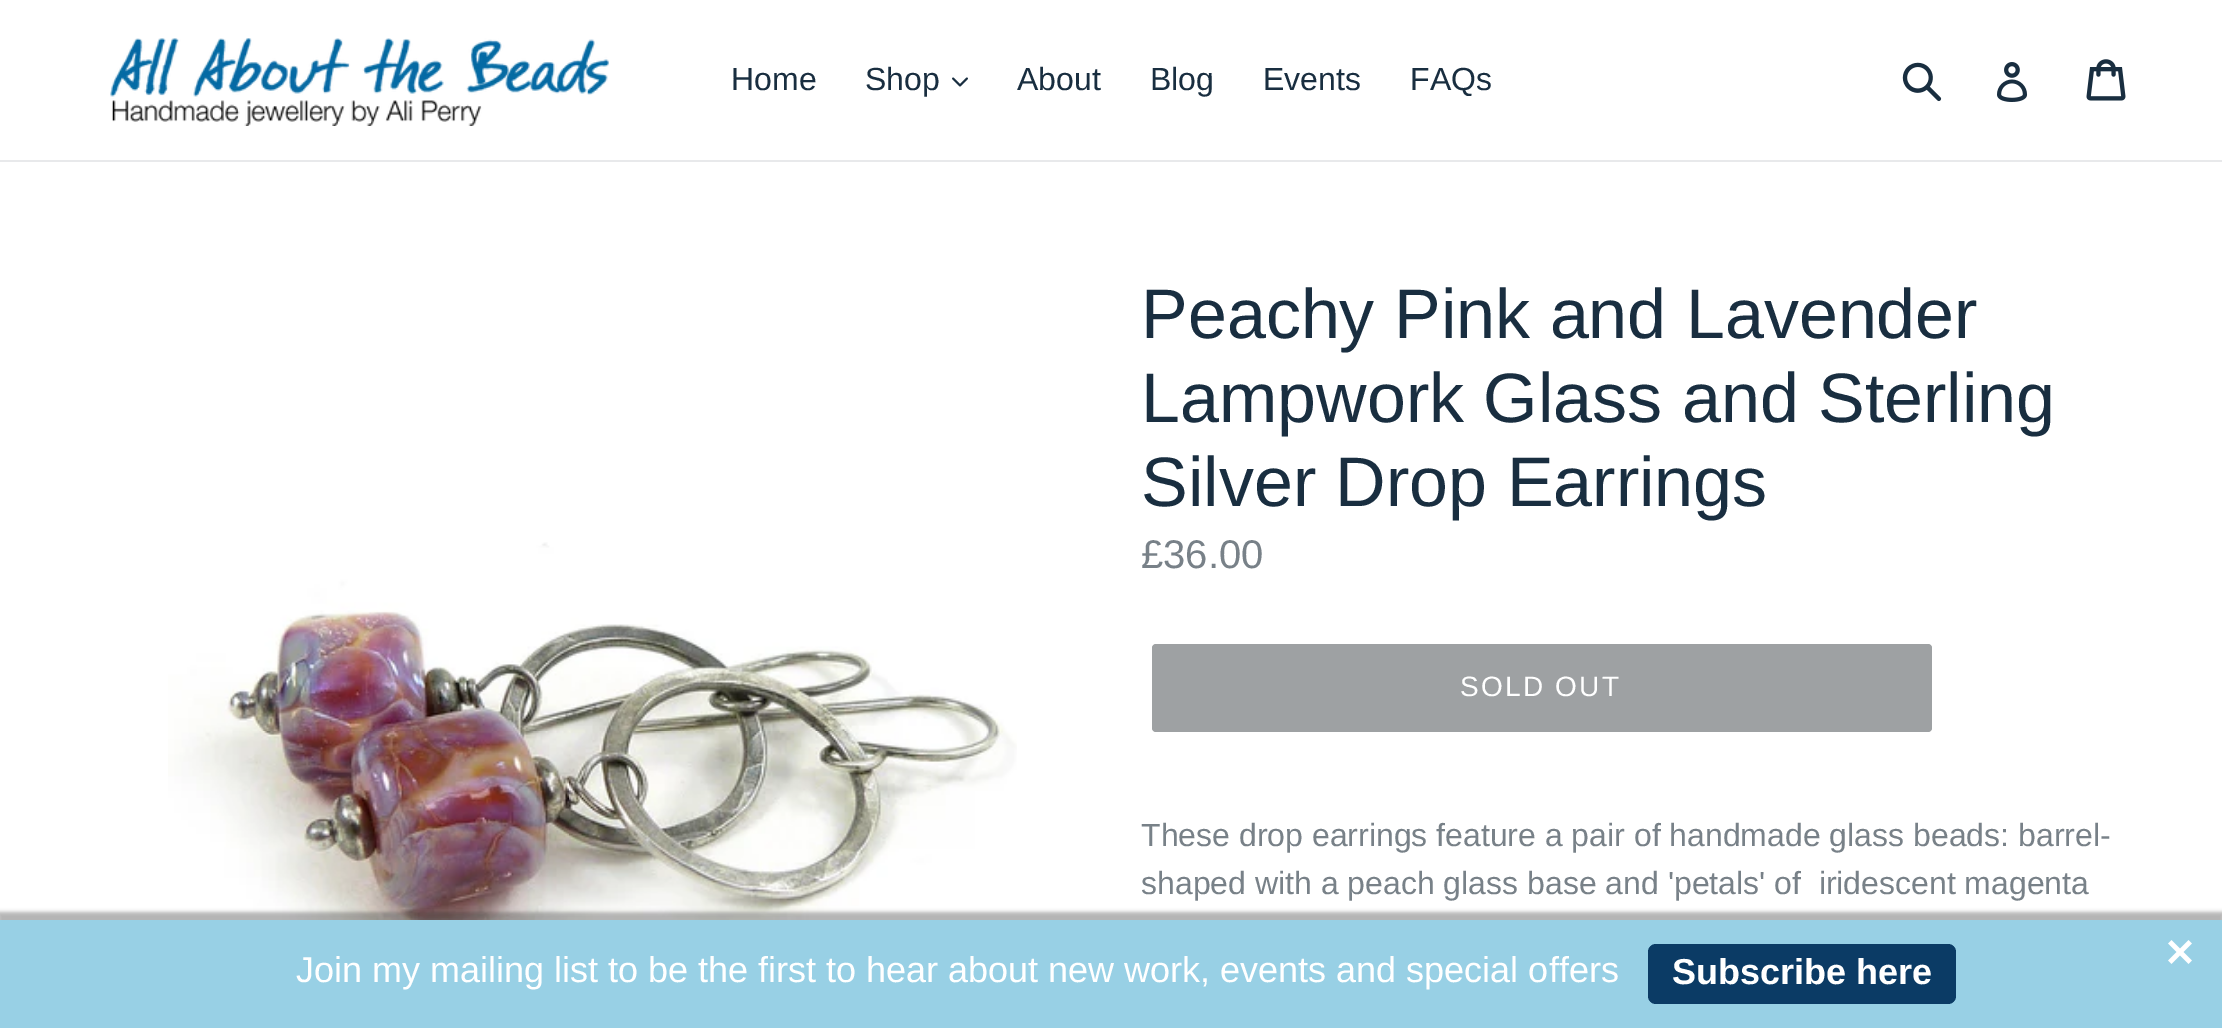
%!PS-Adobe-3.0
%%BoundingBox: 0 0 2222 1028
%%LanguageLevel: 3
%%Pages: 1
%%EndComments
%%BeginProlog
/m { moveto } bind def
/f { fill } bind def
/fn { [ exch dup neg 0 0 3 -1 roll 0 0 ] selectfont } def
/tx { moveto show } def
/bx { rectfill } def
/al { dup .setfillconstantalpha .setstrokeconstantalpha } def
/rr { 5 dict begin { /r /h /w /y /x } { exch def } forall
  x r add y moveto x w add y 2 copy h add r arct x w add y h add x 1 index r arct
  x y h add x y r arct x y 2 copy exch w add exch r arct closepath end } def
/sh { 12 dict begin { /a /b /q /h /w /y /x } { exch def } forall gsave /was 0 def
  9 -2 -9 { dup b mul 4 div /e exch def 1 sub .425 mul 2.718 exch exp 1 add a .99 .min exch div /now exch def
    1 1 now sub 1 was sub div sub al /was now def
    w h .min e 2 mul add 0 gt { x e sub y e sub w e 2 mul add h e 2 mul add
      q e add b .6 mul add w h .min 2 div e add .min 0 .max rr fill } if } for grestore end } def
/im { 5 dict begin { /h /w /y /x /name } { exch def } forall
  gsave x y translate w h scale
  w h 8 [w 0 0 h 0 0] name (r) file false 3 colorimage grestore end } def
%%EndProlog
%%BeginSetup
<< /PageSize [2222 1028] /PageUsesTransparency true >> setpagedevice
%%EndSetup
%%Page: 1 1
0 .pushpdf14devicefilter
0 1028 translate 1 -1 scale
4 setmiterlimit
1 setgray
0 0 2222 1028 bx
0.91 0.914 0.922 setrgbcolor
0 160 2222 2 bx
(image0.raw) 110 38 499 88 im
/LiberationSans-Regular 32 fn
0.098 0.18 0.251 setrgbcolor
(Home) 731 90 tx
(Shop) 865 90 tx
(image1.raw) 952 77 16 10 im
(About) 1017 90 tx
(Blog) 1150 90 tx
(Events) 1263 90 tx
(FAQs) 1410 90 tx
(image2.raw) 1902 62 40 40 im
(image3.raw) 1997 62 31 40 im
(image4.raw) 2086 59 40 42 im
(image5.raw) 168 542 849 378 im
/LiberationSans-Regular 70 fn
(Peachy Pink and Lavender) 1141 338 tx
(Lampwork Glass and Sterling) 1141 422 tx
(Silver Drop Earrings) 1141 506 tx
/LiberationSans-Regular 40 fn
0.471 0.506 0.533 setrgbcolor
(£36.00) 1141 568 tx
0.62 0.631 0.639 setrgbcolor
1152 644 780 88 4 rr f
/LiberationSans-Regular 28 fn
1 setgray
1460 696 m 2.25 0 (SOLD OUT) ashow
/LiberationSans-Regular 32 fn
0.471 0.506 0.533 setrgbcolor
(These drop earrings feature a pair of handmade glass beads: barrel-) 1141 846 tx
(shaped with a peach glass base and 'petals' of  iridescent magenta) 1141 894 tx
0 setgray
-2 912 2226 112 0 2 0.3 sh
0.596 0.816 0.898 setrgbcolor
0 920 2222 108 bx
(image6.raw) 2168 940 24 24 im
/LiberationSans-Regular 36 fn
1 setgray
(Join my mailing list to be the first to hear about new work, events and special offers) 296 982 tx
0.043 0.231 0.396 setrgbcolor
1648 944 308 60 8 rr f
/LiberationSans-Bold 36 fn
1 setgray
(Subscribe here) 1672 984 tx
.poppdf14devicefilter showpage
%%EOF
